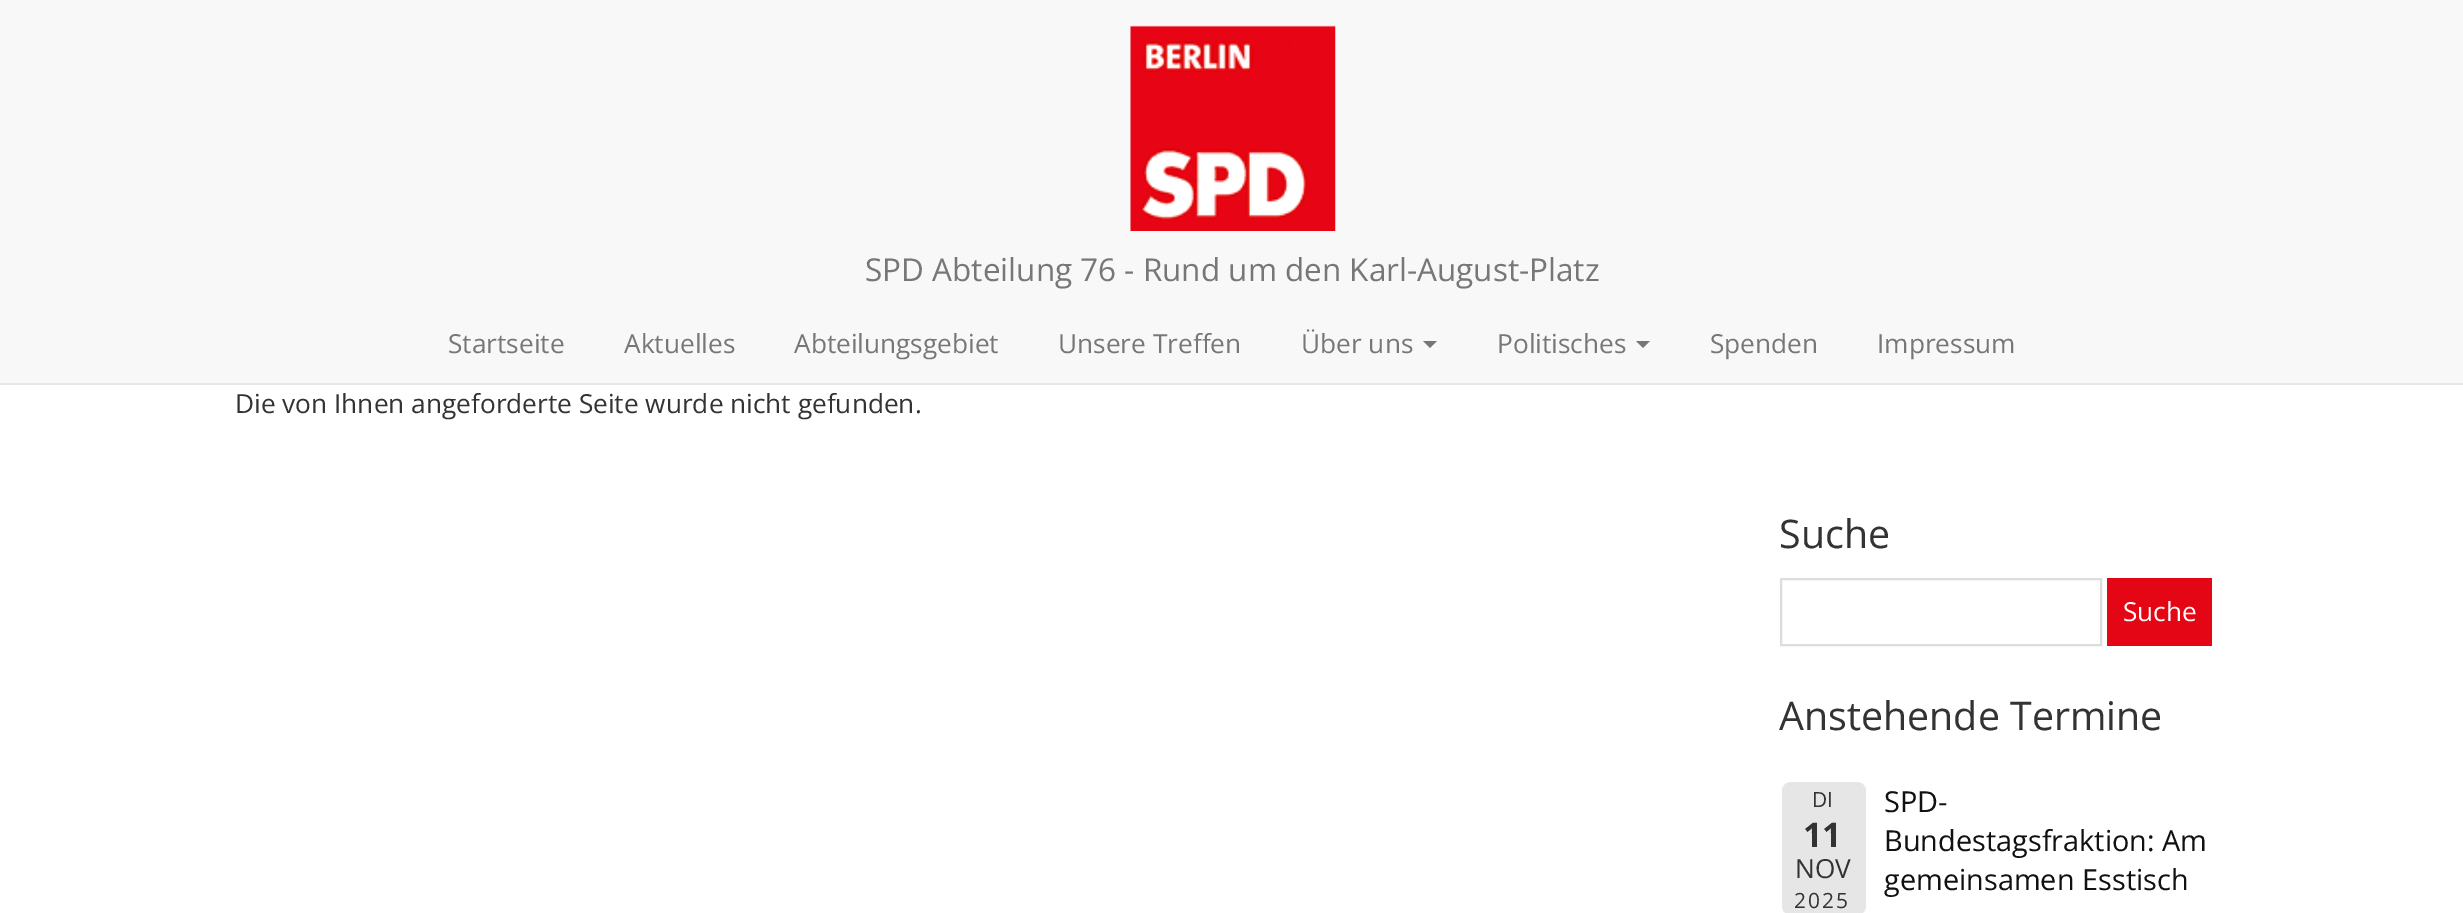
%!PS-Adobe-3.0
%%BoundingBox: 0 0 2463 913
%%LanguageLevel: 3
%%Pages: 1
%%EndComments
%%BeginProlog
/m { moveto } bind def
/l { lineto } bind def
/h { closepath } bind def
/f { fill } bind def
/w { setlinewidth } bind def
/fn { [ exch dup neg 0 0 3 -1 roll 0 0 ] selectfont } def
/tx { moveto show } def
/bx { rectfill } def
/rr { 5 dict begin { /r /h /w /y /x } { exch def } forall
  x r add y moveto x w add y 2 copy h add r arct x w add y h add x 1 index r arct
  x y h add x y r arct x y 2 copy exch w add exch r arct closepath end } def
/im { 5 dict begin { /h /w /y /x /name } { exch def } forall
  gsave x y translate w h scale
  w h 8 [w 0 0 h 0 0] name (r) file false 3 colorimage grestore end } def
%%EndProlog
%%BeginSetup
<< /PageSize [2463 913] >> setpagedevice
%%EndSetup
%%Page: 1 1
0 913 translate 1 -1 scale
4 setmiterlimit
1 setgray
0 0 2463 913 bx
0.973 setgray
0 0 2463 383 bx
0.906 setgray
0 383 2463 2 bx
(image0.raw) 1130 25 206 206 im
/OpenSans-Regular 31.5 fn
0.467 setgray
(SPD Abteilung 76 - Rund um den Karl-August-Platz) 865 281 tx
/OpenSans-Regular 26.25 fn
(Startseite) 448 353 tx
(Aktuelles) 624 353 tx
(Abteilungsgebiet) 794 353 tx
(Unsere Treffen) 1058 353 tx
(Über uns) 1301 353 tx
1423 341 m 1437 341 l 1430 348 l h f
(Politisches) 1497 353 tx
1636 341 m 1650 341 l 1643 348 l h f
(Spenden) 1710 353 tx
(Impressum) 1877 353 tx
0.2 setgray
(Die von Ihnen angeforderte Seite wurde nicht gefunden.) 235 413 tx
/OpenSans-Regular 39.4 fn
(Suche) 1779 548 tx
0.867 setgray
2 w
1781 579 320 66 rectstroke
0.894 0.024 0.078 setrgbcolor
2107 578 105 68 bx
/OpenSans-Regular 26.25 fn
1 setgray
(Suche) 2123 621 tx
/OpenSans-Regular 39.4 fn
0.2 setgray
(Anstehende Termine) 1779 730 tx
0.902 setgray
1782 782 84 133 9 rr f
/OpenSans-Regular 21 fn
0.2 setgray
(DI) 1812 807 tx
/OpenSans-Bold 34 fn
(11) 1803 847 tx
/OpenSans-Regular 26.25 fn
(NOV) 1795 878 tx
/OpenSans-Regular 21 fn
1794 908 m 2 0 (2025) ashow
/OpenSans-Regular 28.9 fn
0.067 setgray
(SPD-) 1884 812 tx
(Bundestagsfraktion: Am) 1884 851 tx
(gemeinsamen Esstisch) 1884 890 tx
showpage
%%EOF
